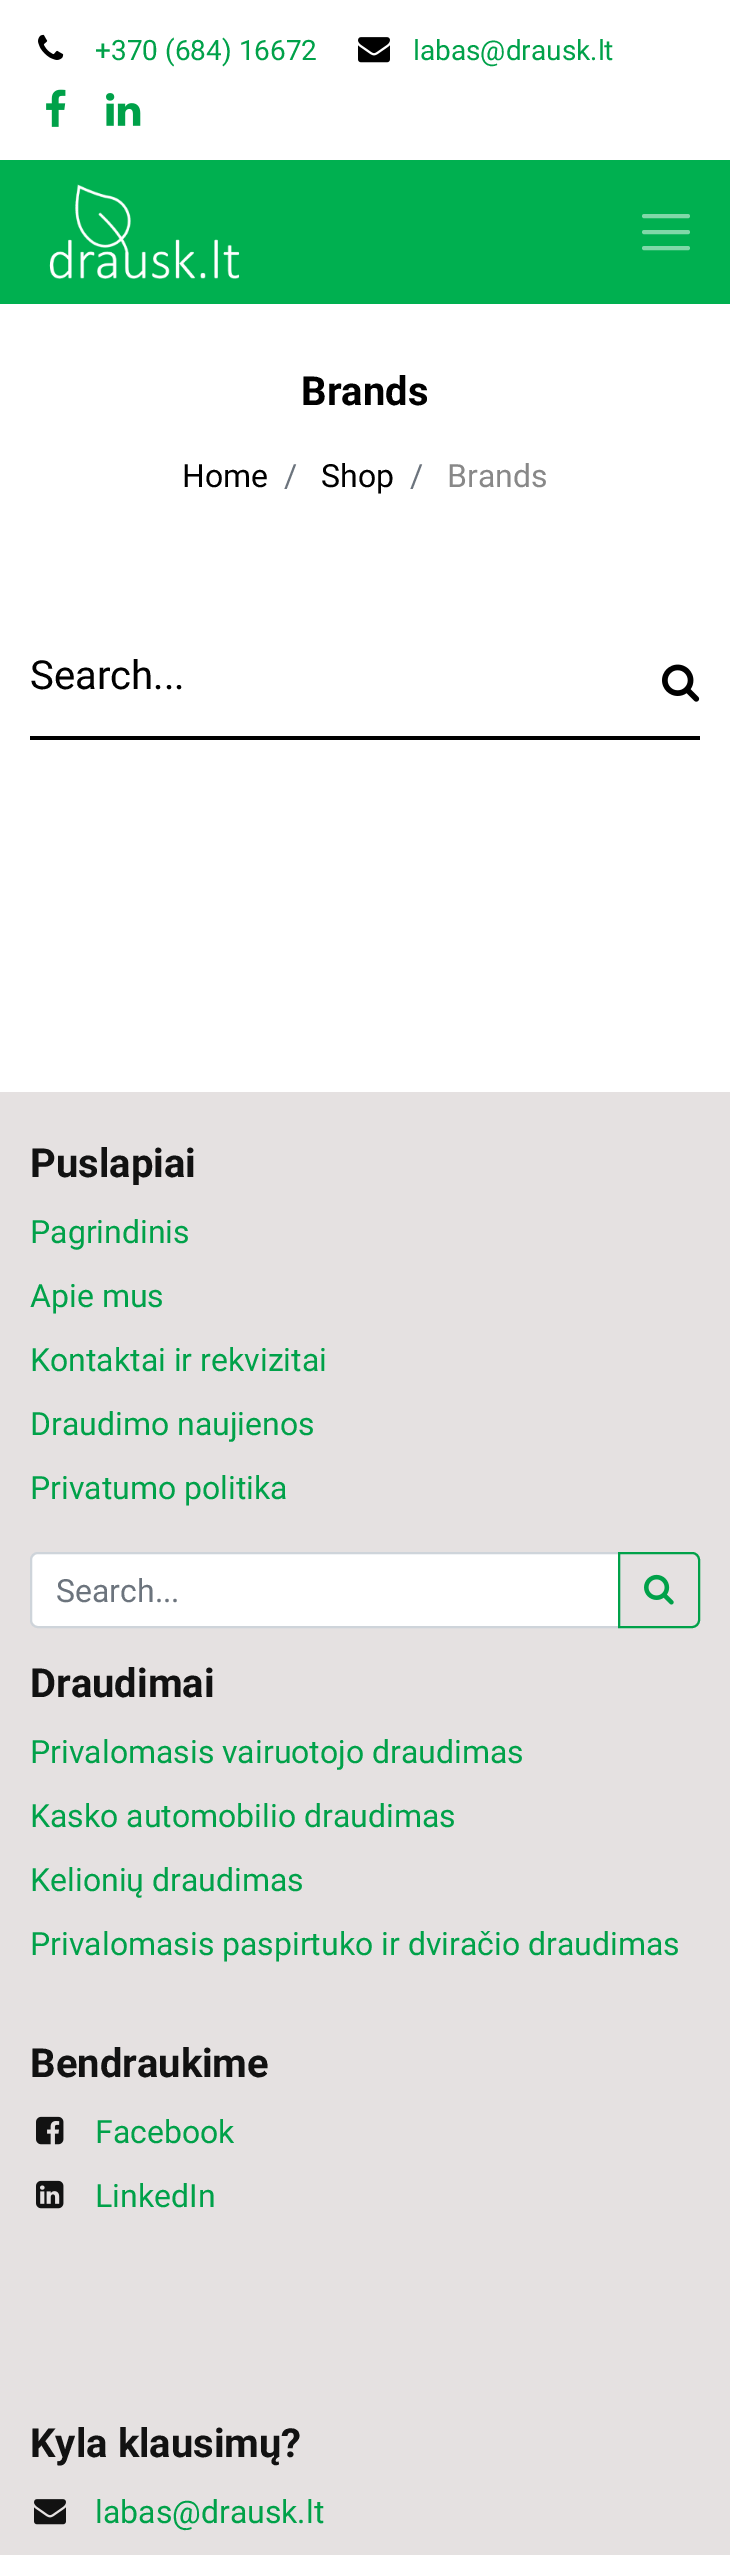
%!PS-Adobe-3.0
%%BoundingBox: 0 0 730 2555
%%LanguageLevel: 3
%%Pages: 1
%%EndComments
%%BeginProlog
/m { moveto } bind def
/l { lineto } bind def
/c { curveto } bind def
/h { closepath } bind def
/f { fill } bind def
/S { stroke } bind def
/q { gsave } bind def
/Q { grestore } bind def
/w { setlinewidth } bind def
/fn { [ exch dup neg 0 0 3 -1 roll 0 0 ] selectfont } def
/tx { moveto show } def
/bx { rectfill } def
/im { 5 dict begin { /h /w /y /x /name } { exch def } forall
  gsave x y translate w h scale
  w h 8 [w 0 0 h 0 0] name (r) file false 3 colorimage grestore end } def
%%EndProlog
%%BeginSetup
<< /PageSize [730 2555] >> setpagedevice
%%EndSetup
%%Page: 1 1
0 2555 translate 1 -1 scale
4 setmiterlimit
1 setgray
0 0 730 2555 bx
(image0.raw) 38 34 26 26 im
/Roboto-Regular 28 fn
0 0.631 0.286 setrgbcolor
(+370 \(684\) 16672) 95 60 tx
(image1.raw) 358 37 32 26 im
(labas@drausk.lt) 413 60 tx
(image2.raw) 46 89 20 38 im
(image3.raw) 106 93 35 33 im
0 0.69 0.314 setrgbcolor
0 160 730 144 bx
(image4.raw) 49 184 191 95 im
0.502 0.847 0.659 setrgbcolor
4 w
1 setlinecap
644 216 m 688 216 l 644 232 m 688 232 l 644 248 m 688 248 l S
/Roboto-Bold 40 fn
0 setgray
(Brands) 301 405 tx
/Roboto-Regular 32 fn
(Home) 182 487 tx
0.424 0.455 0.49 setrgbcolor
(/) 284 487 tx
0 setgray
(Shop) 321 487 tx
0.424 0.455 0.49 setrgbcolor
(/) 410 487 tx
0.533 setgray
(Brands) 447 487 tx
0 setgray
30 736 670 4 bx
/Roboto-Regular 40 fn
(Search...) 30 689 tx
(image5.raw) 662 664 38 38 im
0.898 0.882 0.882 setrgbcolor
0 1092 730 1463 bx
/Roboto-Bold 40 fn
0.071 setgray
(Puslapiai) 30 1177 tx
/Roboto-Regular 32 fn
0 0.631 0.286 setrgbcolor
(Pagrindinis) 30 1243 tx
(Apie mus) 30 1307 tx
(Kontaktai ir rekvizitai) 30 1371 tx
(Draudimo naujienos) 30 1435 tx
(Privatumo politika) 30 1499 tx
1 setgray
38 1553 m 619 1553 l 619 1627 l 38 1627 l 34 1627 31 1624 31 1620 c 31 1560 l 31 1556 34 1553 38 1553 c h q f Q
0.808 0.831 0.855 setrgbcolor
2 w
0 setlinecap
S
0.424 0.455 0.49 setrgbcolor
(Search...) 56 1602 tx
0 0.631 0.286 setrgbcolor
619 1553 m 692 1553 l 696 1553 699 1556 699 1560 c 699 1620 l 699 1624 696 1627 692 1627 c 619 1627 l h S
(image6.raw) 644 1574 30 31 im
/Roboto-Bold 40 fn
0.071 setgray
(Draudimai) 30 1697 tx
/Roboto-Regular 32 fn
0 0.631 0.286 setrgbcolor
(Privalomasis vairuotojo draudimas) 30 1763 tx
(Kasko automobilio draudimas) 30 1827 tx
(Kelionių draudimas) 30 1891 tx
(Privalomasis paspirtuko ir dviračio draudimas) 30 1955 tx
/Roboto-Bold 40 fn
0.071 setgray
(Bendraukime) 30 2077 tx
(image7.raw) 36 2116 28 29 im
/Roboto-Regular 32 fn
0 0.631 0.286 setrgbcolor
(Facebook) 95 2143 tx
(image8.raw) 36 2180 28 29 im
(LinkedIn) 95 2207 tx
/Roboto-Bold 40 fn
0.071 setgray
(Kyla klausimų?) 30 2457 tx
(image9.raw) 34 2499 32 26 im
/Roboto-Regular 32 fn
0 0.631 0.286 setrgbcolor
(labas@drausk.lt) 95 2523 tx
showpage
%%EOF
